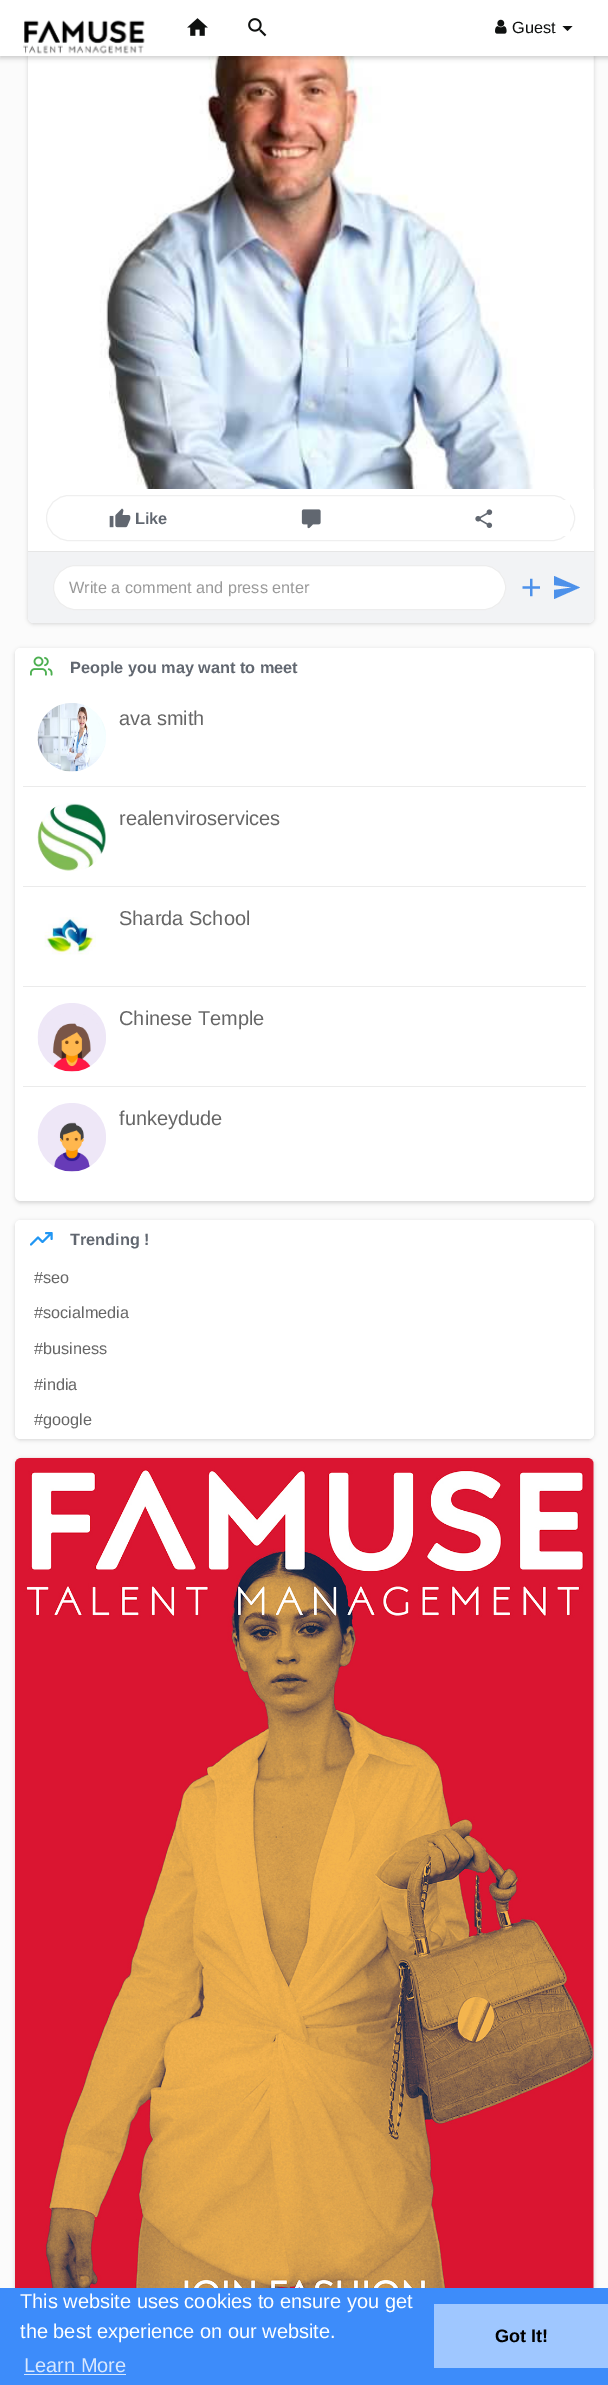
%!PS-Adobe-3.0
%%BoundingBox: 0 0 608 2385
%%LanguageLevel: 3
%%Pages: 1
%%EndComments
%%BeginProlog
/m { moveto } bind def
/l { lineto } bind def
/c { curveto } bind def
/h { closepath } bind def
/f { fill } bind def
/S { stroke } bind def
/q { gsave } bind def
/Q { grestore } bind def
/w { setlinewidth } bind def
/fn { [ exch dup neg 0 0 3 -1 roll 0 0 ] selectfont } def
/tx { moveto show } def
/bx { rectfill } def
/al { dup .setfillconstantalpha .setstrokeconstantalpha } def
/rr { 5 dict begin { /r /h /w /y /x } { exch def } forall
  x r add y moveto x w add y 2 copy h add r arct x w add y h add x 1 index r arct
  x y h add x y r arct x y 2 copy exch w add exch r arct closepath end } def
/sh { 12 dict begin { /a /b /q /h /w /y /x } { exch def } forall gsave /was 0 def
  9 -2 -9 { dup b mul 4 div /e exch def 1 sub .425 mul 2.718 exch exp 1 add a .99 .min exch div /now exch def
    1 1 now sub 1 was sub div sub al /was now def
    w h .min e 2 mul add 0 gt { x e sub y e sub w e 2 mul add h e 2 mul add
      q e add b .6 mul add w h .min 2 div e add .min 0 .max rr fill } if } for grestore end } def
/im { 5 dict begin { /h /w /y /x /name } { exch def } forall
  gsave x y translate w h scale
  w h 8 [w 0 0 h 0 0] name (r) file false 3 colorimage grestore end } def
%%EndProlog
%%BeginSetup
<< /PageSize [608 2385] /PageUsesTransparency true >> setpagedevice
%%EndSetup
%%Page: 1 1
0 .pushpdf14devicefilter
0 2385 translate 1 -1 scale
4 setmiterlimit
0.984 setgray
0 0 608 2385 bx
0 setgray
28 -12 566 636 6 2 0.15 sh
1 setgray
28 -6 566 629 6 rr f
0.976 setgray
593 56 1 433 bx
(image4.raw) 28 56 565 433 im
0 setgray
0 1 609 57 0 2.5 0.2 sh
1 setgray
0 0 608 56 bx
(image0.raw) 23 20 122 34 im
(image1.raw) 187 18 21 18 im
(image2.raw) 248 18 19 19 im
(image3.raw) 495 19 12 15 im
/LiberationSans-Regular 16.25 fn
0.059 0.067 0.063 setrgbcolor
(Guest) 512 33 tx
562.5 26 m 572.5 26 l 567.5 31 l h f
0.937 setgray
46.5 495.5 528 45 22.5 rr S
(image5.raw) 109 508 22 20 im
/LiberationSans-Bold 16.25 fn
0.38 0.404 0.439 setrgbcolor
(Like) 135 524 tx
(image6.raw) 301 509 20 20 im
1 setgray
398 500 172 36 2.5 rr f
(image7.raw) 475 509 18 19 im
0.949 0.953 0.961 setrgbcolor
28 551 m 594 551 l 594 617 l 594 620.5 591.5 623 588 623 c 34 623 l 30.5 623 28 620.5 28 617 c h f
0.902 setgray
28 551 566 1 bx
1 setgray
53.5 565.5 452 44 22 rr q f Q
0.929 setgray
S
/LiberationSans-Regular 16.25 fn
0.6 setgray
(Write a comment and press enter) 69 593 tx
(image8.raw) 522 578 18 19 im
0.302 0.569 0.918 setrgbcolor
554 599 m 580 587.5 l 554 576 l 554 585 l 572.5 587.5 l 554 590 l h f
0 setgray
15 649 579 554 6 2 0.15 sh
1 setgray
15 648 579 553 6 rr f
21 648 m 588 648 l 591.5 648 594 650.5 594 654 c 594 688 l 15 688 l 15 654 l 15 650.5 17.5 648 21 648 c h f
(image9.raw) 30 656 23 20 im
/LiberationSans-Bold 16.25 fn
0.38 0.404 0.439 setrgbcolor
(People you may want to meet) 70 673 tx
0.922 setgray
23 786 563 1 bx
(image10.raw) 37 703 69 69 im
/LiberationSans-Regular 20 fn
0.4 setgray
(ava smith) 119 725 tx
0.922 setgray
23 886 563 1 bx
(image11.raw) 37 803 69 68 im
0.4 setgray
(realenviroservices) 119 825 tx
0.922 setgray
23 986 563 1 bx
(image12.raw) 44 917 52 38 im
0.4 setgray
(Sharda School) 119 925 tx
0.922 setgray
23 1086 563 1 bx
(image13.raw) 37 1003 69 69 im
0.4 setgray
(Chinese Temple) 119 1025 tx
(image14.raw) 37 1103 69 69 im
(funkeydude) 119 1125 tx
0 setgray
15 1221 579 219 6 2 0.15 sh
1 setgray
15 1220 579 219 6 rr f
21 1220 m 588 1220 l 591.5 1220 594 1222.5 594 1226 c 594 1260 l 15 1260 l 15 1226 l 15 1222.5 17.5 1220 21 1220 c h f
0.129 0.588 0.953 setrgbcolor
1.9 w
1 setlinecap
1 setlinejoin
51.5 1233 m 42.5 1242 l 38 1237.5 l 31 1244.5 l 46 1233 m 51.5 1233 l 51.5 1239 l S
/LiberationSans-Bold 16.25 fn
0.38 0.404 0.439 setrgbcolor
(Trending !) 70 1245 tx
/LiberationSans-Regular 16.25 fn
0.4 setgray
(#seo) 34 1283 tx
(#socialmedia) 34 1318 tx
(#business) 34 1354 tx
(#india) 34 1390 tx
1 setgray
15 1403 m 594 1403 l 594 1433 l 594 1436.5 591.5 1439 588 1439 c 21 1439 l 17.5 1439 15 1436.5 15 1433 c h f
0.4 setgray
(#google) 34 1425 tx
0 setgray
15 1459 579 865 6 2 0.15 sh
1 setgray
15 1458 579 865 6 rr f
(image15.raw) 15 1457 579 831 im
0.239 0.549 0.98 setrgbcolor
0 2288 608 97 bx
/LiberationSans-Regular 20 fn
1 setgray
(This website uses cookies to ensure you get) 20 2308 tx
(the best experience on our website.) 20 2338 tx
0.847 0.91 0.996 setrgbcolor
(Learn More) 24 2372 tx
24 2374 102 1 bx
0.624 0.78 1 setrgbcolor
434 2304 174 64 bx
/LiberationSans-Bold 18 fn
0 setgray
(Got It!) 495 2342 tx
.poppdf14devicefilter showpage
%%EOF
